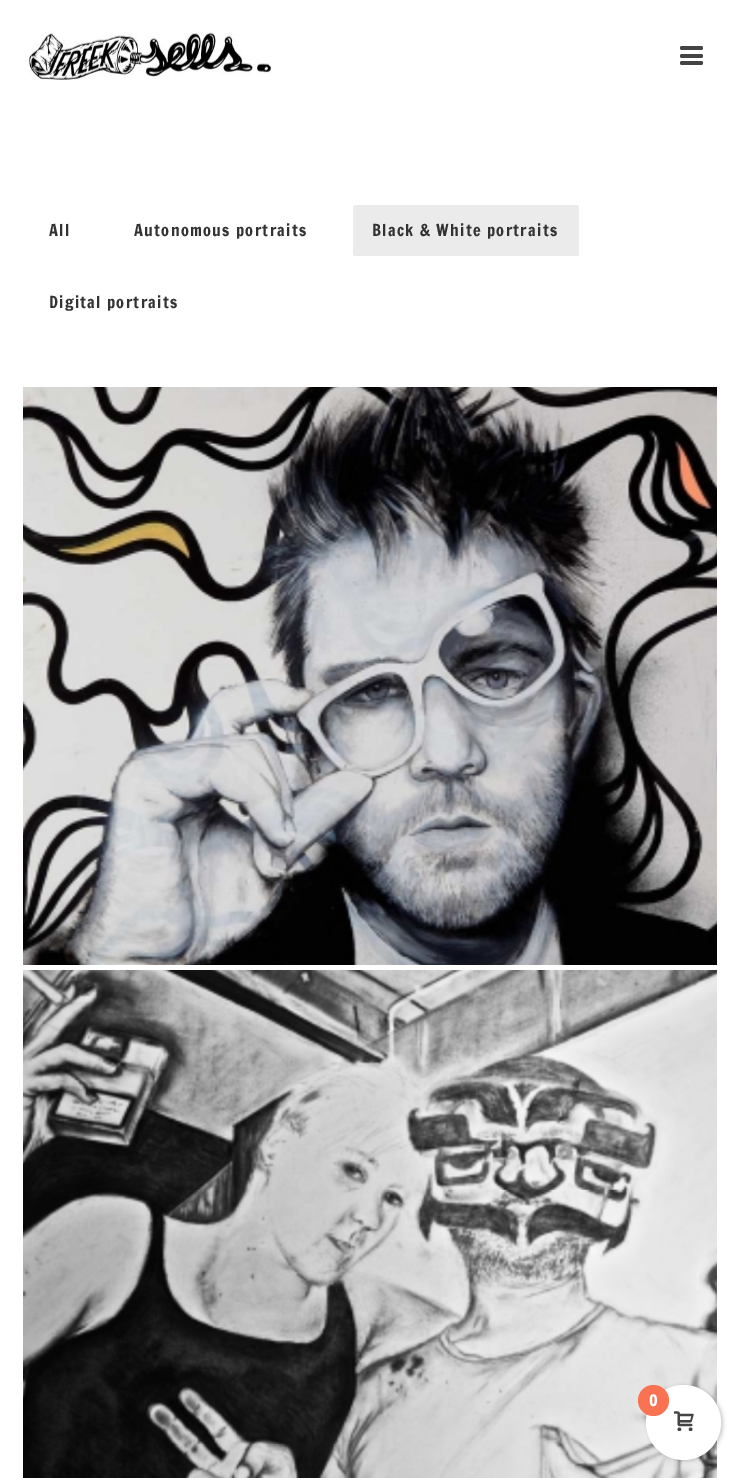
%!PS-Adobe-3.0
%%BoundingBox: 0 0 739 1478
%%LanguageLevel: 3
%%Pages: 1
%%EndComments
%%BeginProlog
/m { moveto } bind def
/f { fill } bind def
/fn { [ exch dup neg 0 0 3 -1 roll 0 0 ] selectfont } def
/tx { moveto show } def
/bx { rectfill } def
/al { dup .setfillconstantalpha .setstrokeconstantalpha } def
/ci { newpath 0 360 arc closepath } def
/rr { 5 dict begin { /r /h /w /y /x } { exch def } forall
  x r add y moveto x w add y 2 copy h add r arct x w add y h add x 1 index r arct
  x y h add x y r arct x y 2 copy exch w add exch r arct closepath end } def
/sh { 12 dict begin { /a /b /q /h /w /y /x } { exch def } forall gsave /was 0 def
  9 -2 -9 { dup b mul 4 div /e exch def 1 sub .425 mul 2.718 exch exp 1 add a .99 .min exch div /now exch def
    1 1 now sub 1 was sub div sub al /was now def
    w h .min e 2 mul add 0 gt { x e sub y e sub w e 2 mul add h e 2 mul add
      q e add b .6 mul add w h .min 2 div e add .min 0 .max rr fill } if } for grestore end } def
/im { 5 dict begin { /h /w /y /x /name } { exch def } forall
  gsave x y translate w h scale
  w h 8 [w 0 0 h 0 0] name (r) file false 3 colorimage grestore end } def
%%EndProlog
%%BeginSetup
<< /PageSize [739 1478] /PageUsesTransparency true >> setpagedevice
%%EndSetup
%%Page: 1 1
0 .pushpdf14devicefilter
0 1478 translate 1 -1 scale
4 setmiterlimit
1 setgray
0 0 739 1478 bx
(image0.raw) 27 30 244 50 im
0.267 setgray
680 46 23 4 2 rr f
680 54 23 4 2 rr f
680 61 23 4 2 rr f
/FrancoisOne-Regular 16.25 fn
0.196 setgray
49 236 m 1.25 0 (All) ashow
134 236 m 1.25 0 (Autonomous portraits) ashow
0.922 setgray
353 205 226 51 2.5 rr f
0.196 setgray
372 236 m 1.25 0 (Black & White portraits) ashow
49 308 m 1.25 0 (Digital portraits) ashow
(image1.raw) 23 387 694 578 im
(image2.raw) 23 970 694 508 im
0 setgray
648 1386 75 75 37.5 2 0.2 sh
1 setgray
683.5 1422.5 37.5 ci f
0.976 0.451 0.322 setrgbcolor
653.5 1400.5 15.5 ci f
/FrancoisOne-Bold 15 fn
1 setgray
(0) 649 1406 tx
(image3.raw) 674 1411 20 20 im
.poppdf14devicefilter showpage
%%EOF
